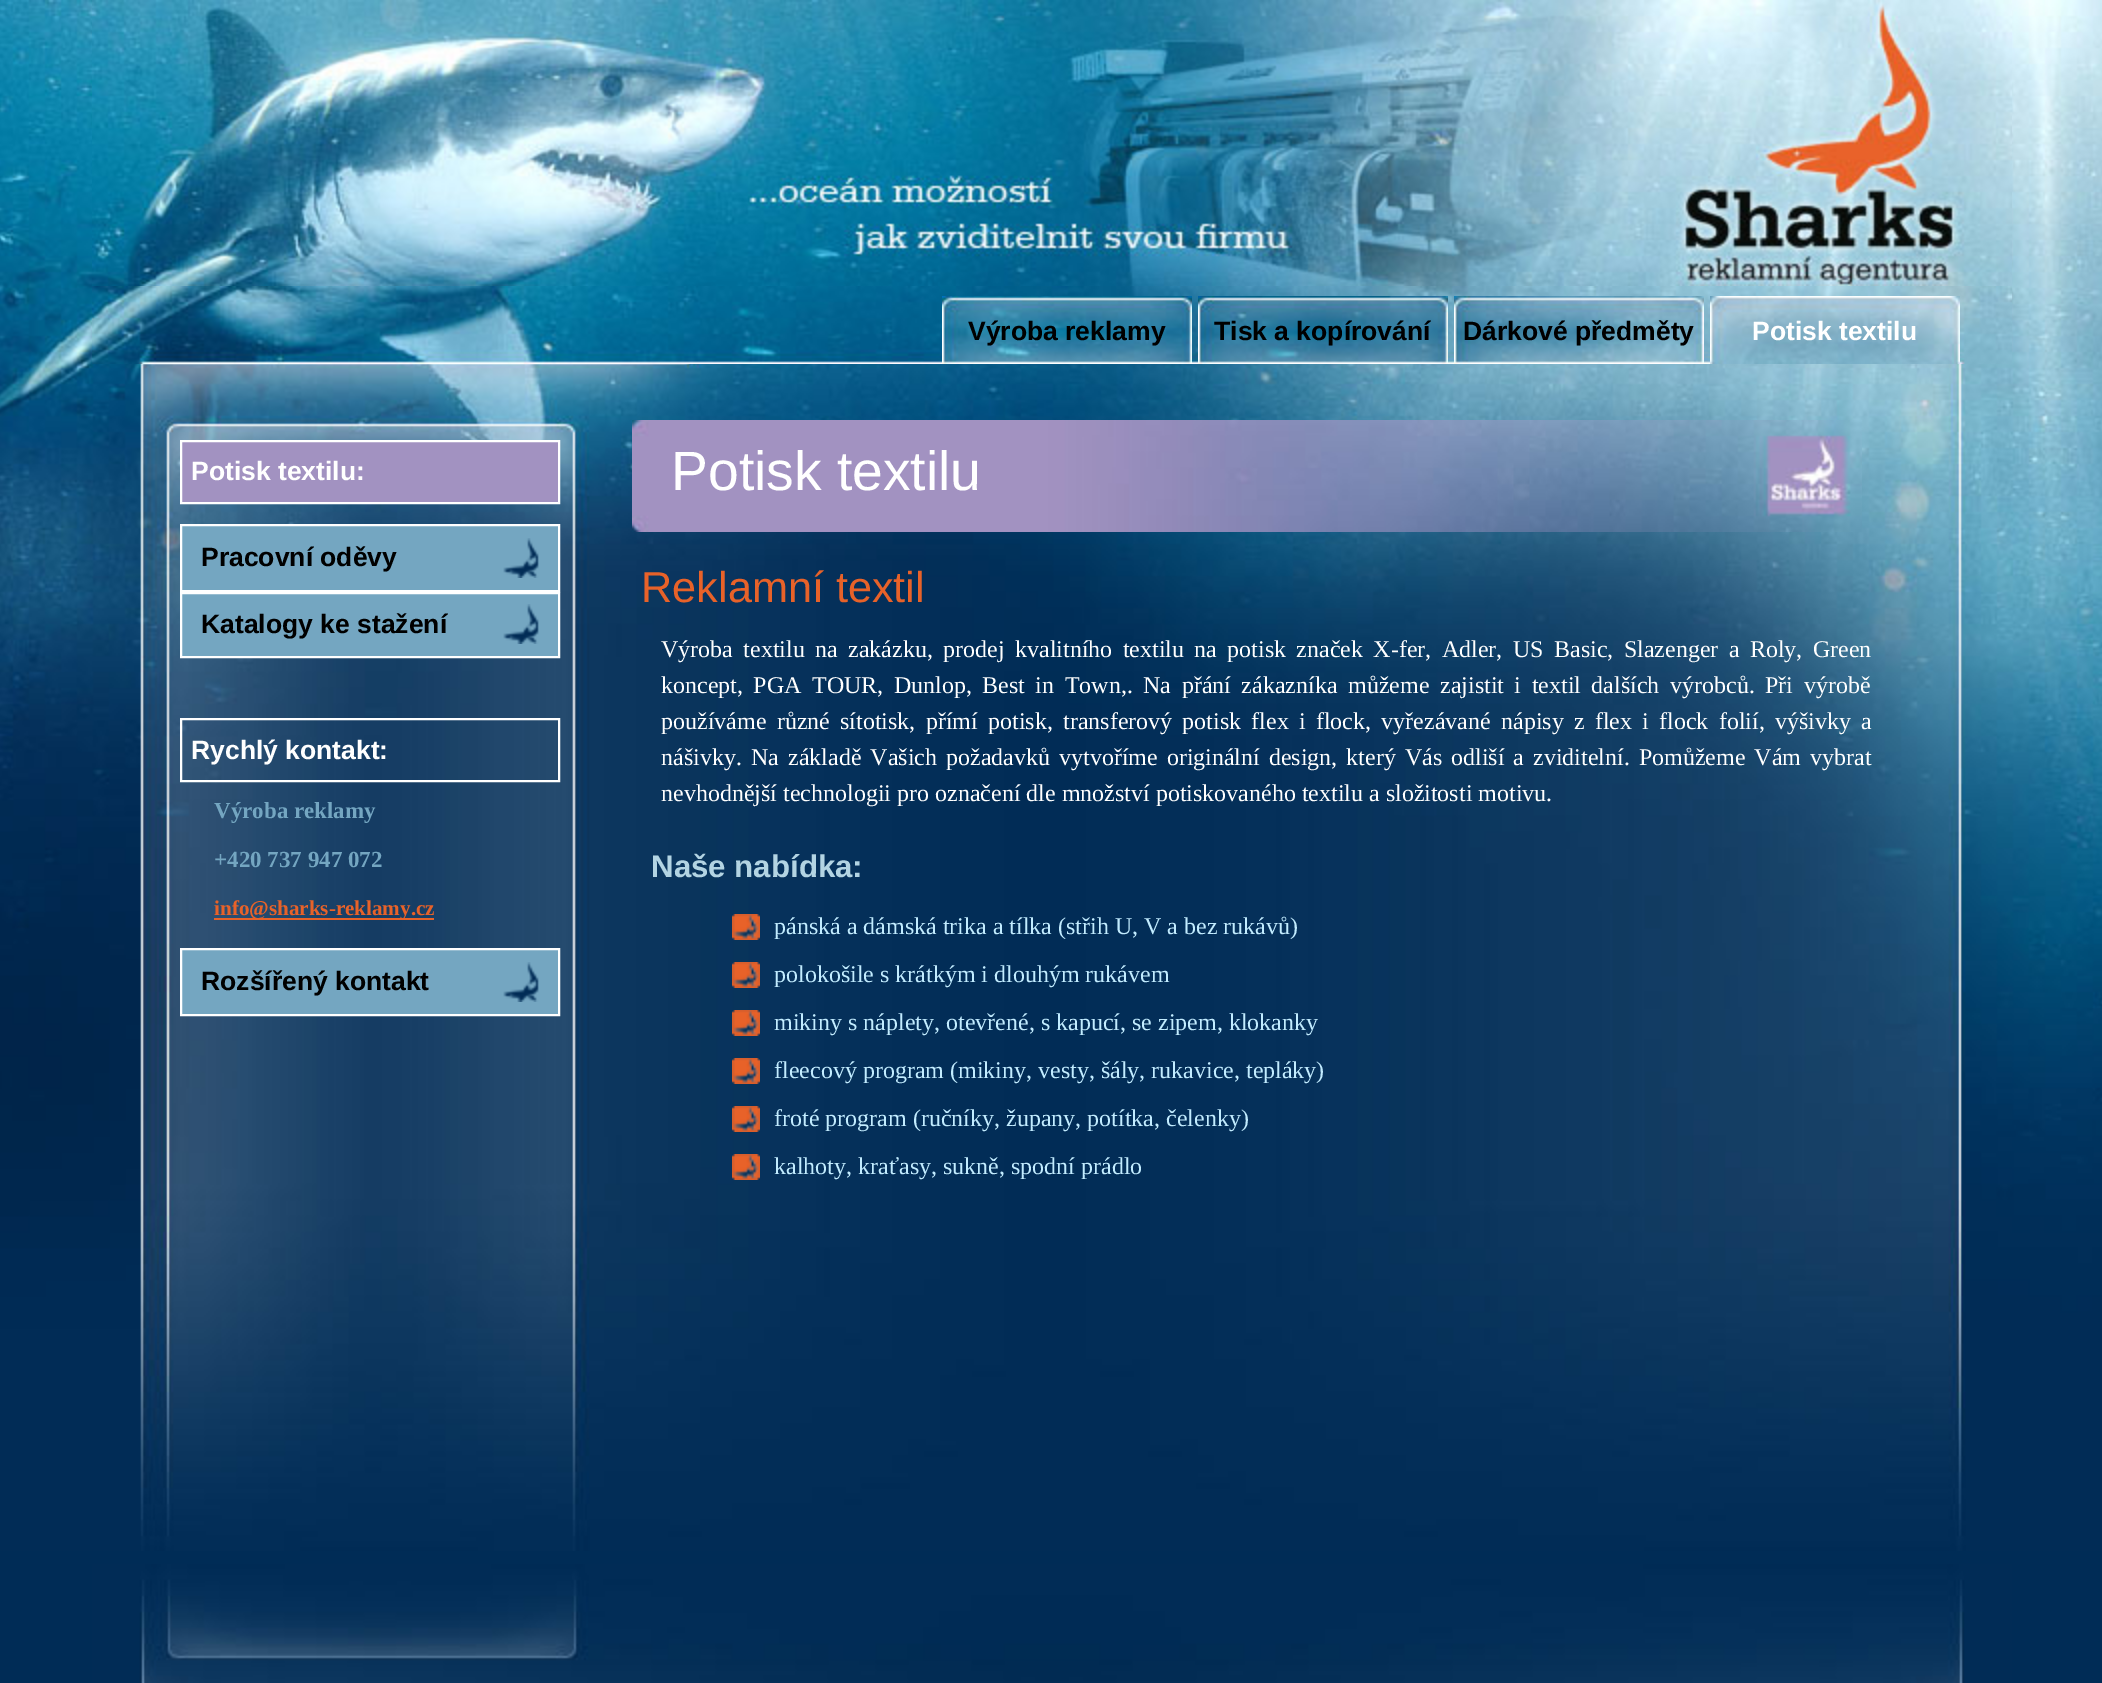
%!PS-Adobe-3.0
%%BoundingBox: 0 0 2102 1683
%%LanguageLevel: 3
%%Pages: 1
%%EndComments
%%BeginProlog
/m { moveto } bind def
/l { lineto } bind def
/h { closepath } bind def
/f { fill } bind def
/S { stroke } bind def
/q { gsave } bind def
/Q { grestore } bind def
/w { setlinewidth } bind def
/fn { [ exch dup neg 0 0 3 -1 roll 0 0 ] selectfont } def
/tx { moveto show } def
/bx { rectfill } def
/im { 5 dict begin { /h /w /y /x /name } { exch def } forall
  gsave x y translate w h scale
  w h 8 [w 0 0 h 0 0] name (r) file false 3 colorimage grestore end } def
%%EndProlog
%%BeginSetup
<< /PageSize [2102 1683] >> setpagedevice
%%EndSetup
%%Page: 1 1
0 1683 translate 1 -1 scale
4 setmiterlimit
0 0.173 0.337 setrgbcolor
0 0 2102 1683 bx
(image0.raw) 0 0 2102 1551 im
(image1.raw) 92 0 1920 286 im
(image2.raw) 92 286 1920 78 im
(image3.raw) 942 296 250 68 im
/LiberationSans-Bold 26.5 fn
0 setgray
(Výroba reklamy) 968 340 tx
(image4.raw) 1198 296 250 68 im
(Tisk a kopírování) 1214 340 tx
(image5.raw) 1454 296 250 68 im
(Dárkové předměty) 1463 340 tx
(image6.raw) 1710 296 250 68 im
1 setgray
(Potisk textilu) 1752 340 tx
0.635 0.573 0.757 setrgbcolor
181 441 m 559 441 l 559 503 l 181 503 l h q f Q
1 setgray
2 w
S
(Potisk textilu:) 191 480 tx
0.455 0.651 0.757 setrgbcolor
182 526 376 130 bx
(image7.raw) 503 538 36 40 im
1 setgray
181 525 378 66 rectstroke
0 setgray
(Pracovní oděvy) 201 566 tx
(image7.raw) 503 604 36 40 im
1 setgray
181 593 378 64 rectstroke
0 setgray
(Katalogy ke stažení) 201 633 tx
1 setgray
181 719 378 62 rectstroke
(Rychlý kontakt:) 191 759 tx
/LiberationSerif-Bold 23 fn
0.455 0.651 0.757 setrgbcolor
(Výroba reklamy) 214 818 tx
(+420 737 947 072) 214 867 tx
0.91 0.384 0.161 setrgbcolor
214 918 220 2 bx
/LiberationSerif-Bold 21.1 fn
(info@sharks-reklamy.cz) 214 915 tx
0.455 0.651 0.757 setrgbcolor
182 950 376 64 bx
(image7.raw) 503 962 36 40 im
1 setgray
181 949 378 66 rectstroke
/LiberationSans-Bold 26.5 fn
0 setgray
(Rozšířený kontakt) 201 990 tx
(image8.raw) 632 420 1230 112 im
/LiberationSans-Regular 55.25 fn
1 setgray
(Potisk textilu) 671 490 tx
/LiberationSans-Regular 43.25 fn
0.91 0.384 0.161 setrgbcolor
(Reklamní textil) 641 602 tx
/LiberationSerif-Regular 24 fn
1 setgray
661 657 m 4.4 0 32 (Výroba textilu na zakázku, prodej kvalitního textilu na potisk značek X-fer, Adler, US Basic, Slazenger a Roly, Green) widthshow
661 693 m 4.5 0 32 (koncept, PGA TOUR, Dunlop, Best in Town,. Na přání zákazníka můžeme) widthshow
1440 693 m 4.5 0 32 (zajistit i textil dalších výrobců. Při výrobě) widthshow
661 729 m 4.25 0 32 (používáme různé sítotisk, přímí potisk, transferový potisk flex i flock, vyřezávané nápisy z flex i flock folií, výšivky a) widthshow
(nášivky.) 661 765 tx
751 765 m 3 0 32 (Na základě Vašich požadavků vytvoříme originální design, který Vás odliší a zviditelní. Pomůžeme Vám vybrat) widthshow
(nevhodnější technologii pro označení dle množství potiskovaného textilu a složitosti motivu.) 661 801 tx
/LiberationSans-Bold 31.25 fn
0.702 0.831 0.89 setrgbcolor
(Naše nabídka:) 651 877 tx
(image9.raw) 732 914 28 26 im
/LiberationSerif-Regular 24 fn
0.761 0.925 1 setrgbcolor
(pánská a dámská trika a tílka \(střih U, V a bez rukávů\)) 774 934 tx
(image9.raw) 732 962 28 26 im
(polokošile s krátkým i dlouhým rukávem) 774 982 tx
(image9.raw) 732 1010 28 26 im
(mikiny s náplety, otevřené, s kapucí, se zipem, klokanky) 774 1030 tx
(image9.raw) 732 1058 28 26 im
(fleecový program \(mikiny, vesty, šály, rukavice, tepláky\)) 774 1078 tx
(image9.raw) 732 1106 28 26 im
(froté program \(ručníky, župany, potítka, čelenky\)) 774 1126 tx
(image9.raw) 732 1154 28 26 im
(kalhoty, kraťasy, sukně, spodní prádlo) 774 1174 tx
(image10.raw) 92 1564 1920 119 im
showpage
%%EOF
